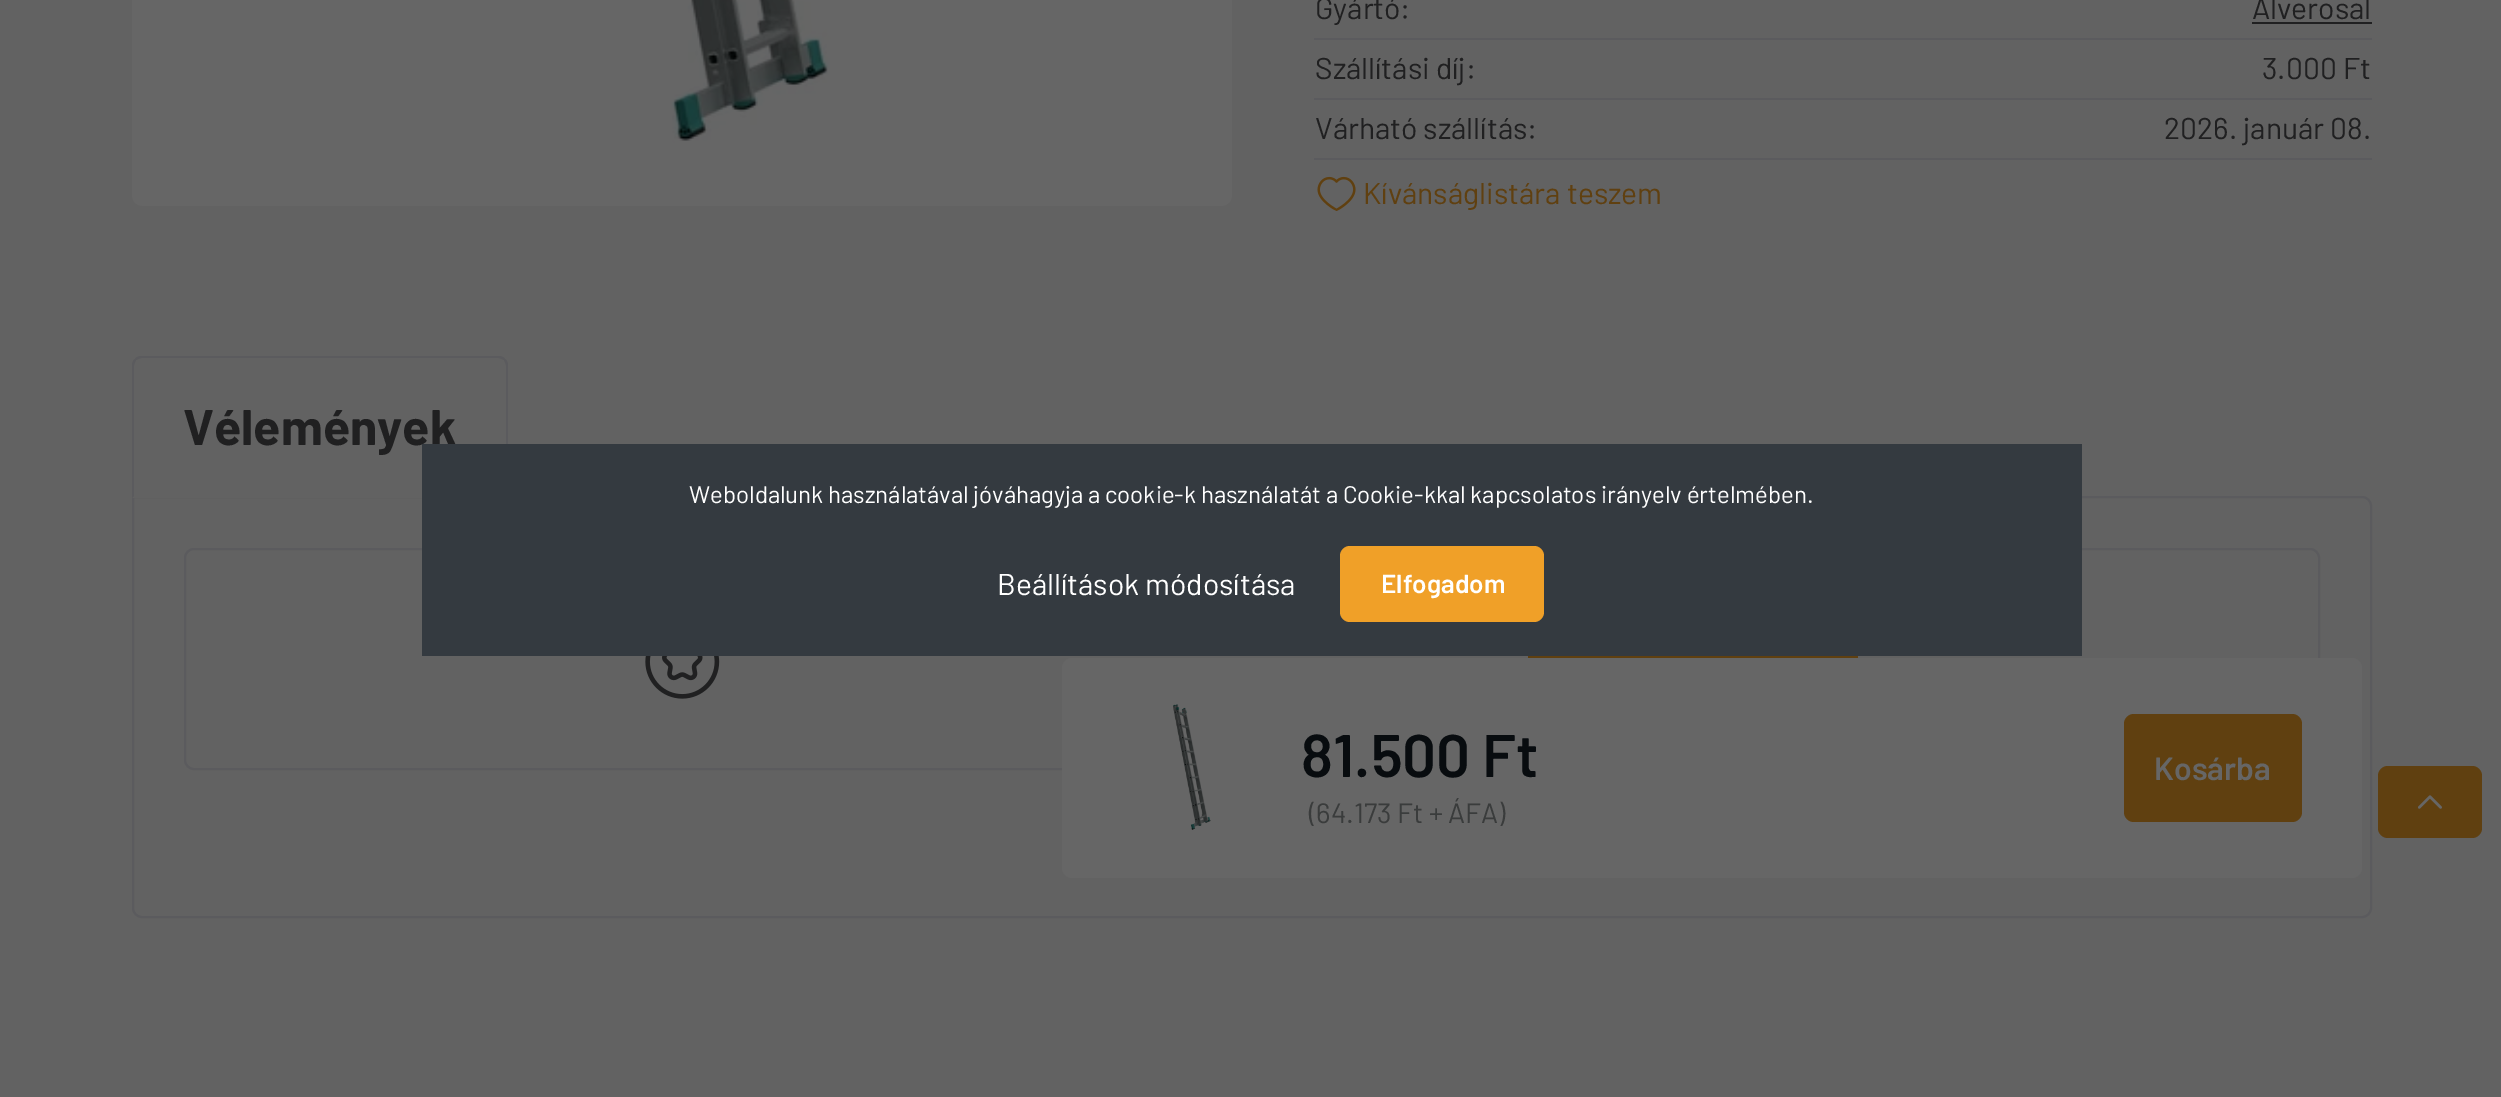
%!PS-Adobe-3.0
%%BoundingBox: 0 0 2501 1097
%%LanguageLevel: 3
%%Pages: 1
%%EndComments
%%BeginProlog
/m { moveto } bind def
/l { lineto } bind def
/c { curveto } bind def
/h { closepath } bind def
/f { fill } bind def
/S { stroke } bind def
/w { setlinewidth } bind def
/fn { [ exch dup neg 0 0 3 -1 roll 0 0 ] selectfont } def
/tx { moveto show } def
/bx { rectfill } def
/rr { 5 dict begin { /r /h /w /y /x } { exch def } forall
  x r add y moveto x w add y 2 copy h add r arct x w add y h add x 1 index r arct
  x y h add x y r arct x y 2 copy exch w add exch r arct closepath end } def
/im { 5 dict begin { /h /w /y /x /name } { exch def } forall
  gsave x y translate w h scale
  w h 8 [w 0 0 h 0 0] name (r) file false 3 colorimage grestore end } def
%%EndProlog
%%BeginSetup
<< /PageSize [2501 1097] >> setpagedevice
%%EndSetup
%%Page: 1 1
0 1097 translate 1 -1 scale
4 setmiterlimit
0.384 setgray
0 0 2501 1097 bx
0.357 0.357 0.369 setrgbcolor
2 w
133 497 m 2362 497 l 2367 497 2371 501 2371 506 c 2371 908 l 2371 913 2367 917 2362 917 c 142 917 l 137 917 133 913 133 908 c h S
0.384 setgray
142 356 m 498 356 l 503.5 356 508 360.5 508 366 c 508 498 l 132 498 l 132 366 l 132 360.5 136.5 356 142 356 c h f
0.357 0.357 0.369 setrgbcolor
142 356 m 139 356 136 357 135 359 c 136 360 l 138 359 140 358 142 358 c 498 358 l 500 358 502 359 504 360 c 505 359 l 504 357 501 356 498 356 c h f
508 498 m 508 366 l 508 363 507 360 505 359 c 504 360 l 505 362 506 364 506 366 c 506 496 l h f
132 498 m 134 496 l 134 366 l 134 364 135 362 136 360 c 135 359 l 133 360 132 363 132 366 c h f
/Barlow-Bold 50 fn
0.125 0.125 0.129 setrgbcolor
(Vélemények) 183 445 tx
0.357 0.357 0.369 setrgbcolor
185 549 2134 220 9 rr S
(image0.raw) 645 656 75 43 im
0.376 0.251 0.063 setrgbcolor
1528 656 330 2 bx
(image1.raw) 132 0 1100 206 im
/Barlow-Regular 30 fn
0.125 0.125 0.129 setrgbcolor
(Gyártó:) 1315 19 tx
(Alverosal) 2252 19 tx
2252 22 120 2 bx
(Szállítási díj:) 1315 79 tx
0.357 0.357 0.369 setrgbcolor
1314 38 1058 2 bx
0.125 0.125 0.129 setrgbcolor
(3.000 Ft) 2262 79 tx
(Várható szállítás:) 1315 139 tx
0.357 0.357 0.369 setrgbcolor
1314 98 1058 2 bx
0.125 0.125 0.129 setrgbcolor
(2026. január 08.) 2164 139 tx
0.357 0.357 0.369 setrgbcolor
1314 158 1058 2 bx
(image2.raw) 1317 176 39 35 im
0.376 0.251 0.063 setrgbcolor
(Kívánságlistára teszem) 1363 204 tx
0.4 setgray
1062 658 1300 220 10 rr f
(image3.raw) 1173 704 38 126 im
/Barlow-SemiBold 60 fn
0.031 0.047 0.059 setrgbcolor
(81.500 Ft) 1301 777 tx
/Barlow-Regular 28 fn
0.227 0.235 0.235 setrgbcolor
(\(64.173 Ft + ÁFA\)) 1309 823 tx
0.376 0.251 0.063 setrgbcolor
2124 714 178 108 10 rr f
/Barlow-SemiBold 32 fn
0.4 setgray
(Kosárba) 2154 780 tx
0.376 0.251 0.063 setrgbcolor
2378 766 104 72 10 rr f
(image4.raw) 2418 795 24 14 im
0.204 0.227 0.251 setrgbcolor
422 444 1660 212 bx
/Barlow-Regular 24 fn
1 setgray
(Weboldalunk használatával jóváhagyja a cookie-k használatát a Cookie-kkal kapcsolatos irányelv értelmében.) 689 503 tx
/Barlow-Regular 30 fn
(Beállítások módosítása) 997 595 tx
0.941 0.627 0.157 setrgbcolor
1340 546 204 76 10 rr f
/Barlow-SemiBold 26 fn
1 setgray
(Elfogadom) 1381 593 tx
showpage
%%EOF
